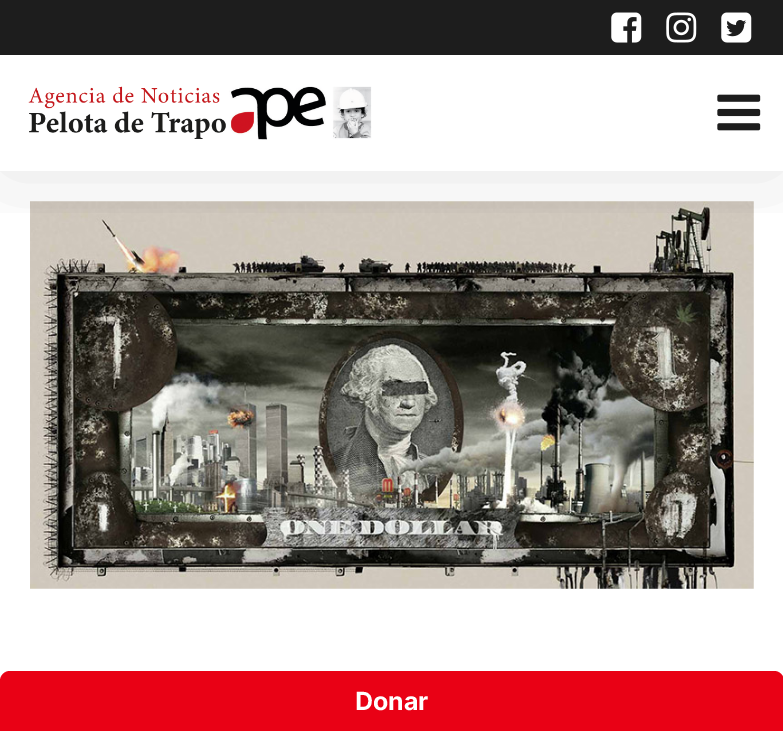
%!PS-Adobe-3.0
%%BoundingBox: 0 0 783 731
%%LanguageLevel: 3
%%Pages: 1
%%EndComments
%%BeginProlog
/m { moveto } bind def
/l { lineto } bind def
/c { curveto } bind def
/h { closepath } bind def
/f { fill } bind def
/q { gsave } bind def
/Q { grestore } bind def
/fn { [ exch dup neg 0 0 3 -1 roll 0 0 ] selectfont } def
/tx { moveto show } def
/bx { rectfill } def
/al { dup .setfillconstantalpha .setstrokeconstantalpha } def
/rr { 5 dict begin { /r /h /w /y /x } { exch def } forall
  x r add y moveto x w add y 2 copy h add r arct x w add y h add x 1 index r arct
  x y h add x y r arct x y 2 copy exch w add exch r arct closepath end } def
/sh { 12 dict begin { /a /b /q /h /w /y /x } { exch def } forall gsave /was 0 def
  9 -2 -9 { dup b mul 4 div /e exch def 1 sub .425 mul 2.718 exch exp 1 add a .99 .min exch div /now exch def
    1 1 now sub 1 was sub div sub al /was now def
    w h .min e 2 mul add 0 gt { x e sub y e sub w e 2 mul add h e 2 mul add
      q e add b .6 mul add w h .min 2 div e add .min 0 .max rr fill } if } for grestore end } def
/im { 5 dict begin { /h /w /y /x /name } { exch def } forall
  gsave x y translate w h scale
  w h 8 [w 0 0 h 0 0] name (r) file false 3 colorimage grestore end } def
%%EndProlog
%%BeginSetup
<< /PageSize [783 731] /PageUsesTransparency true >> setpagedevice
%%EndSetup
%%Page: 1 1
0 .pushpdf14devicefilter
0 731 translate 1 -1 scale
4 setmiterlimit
1 setgray
0 0 783 731 bx
(image0.raw) 30 201 724 388 im
q
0 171 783 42 rectclip
0 setgray
0 0 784 171 0 50 0.1 sh
Q
0.114 setgray
0 0 783 55 bx
(image1.raw) 611 12 31 31 im
(image2.raw) 666 12 31 31 im
(image3.raw) 721 12 31 31 im
(image4.raw) 28 86 344 54 im
(image5.raw) 717 94 44 37 im
0.914 0.004 0.082 setrgbcolor
10 671 m 774 671 l 779.5 671 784 675.5 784 681 c 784 731 l 0 731 l 0 681 l 0 675.5 4.5 671 10 671 c h f
/Inter-Bold 25 fn
1 setgray
(Donar) 355 710 tx
.poppdf14devicefilter showpage
%%EOF
